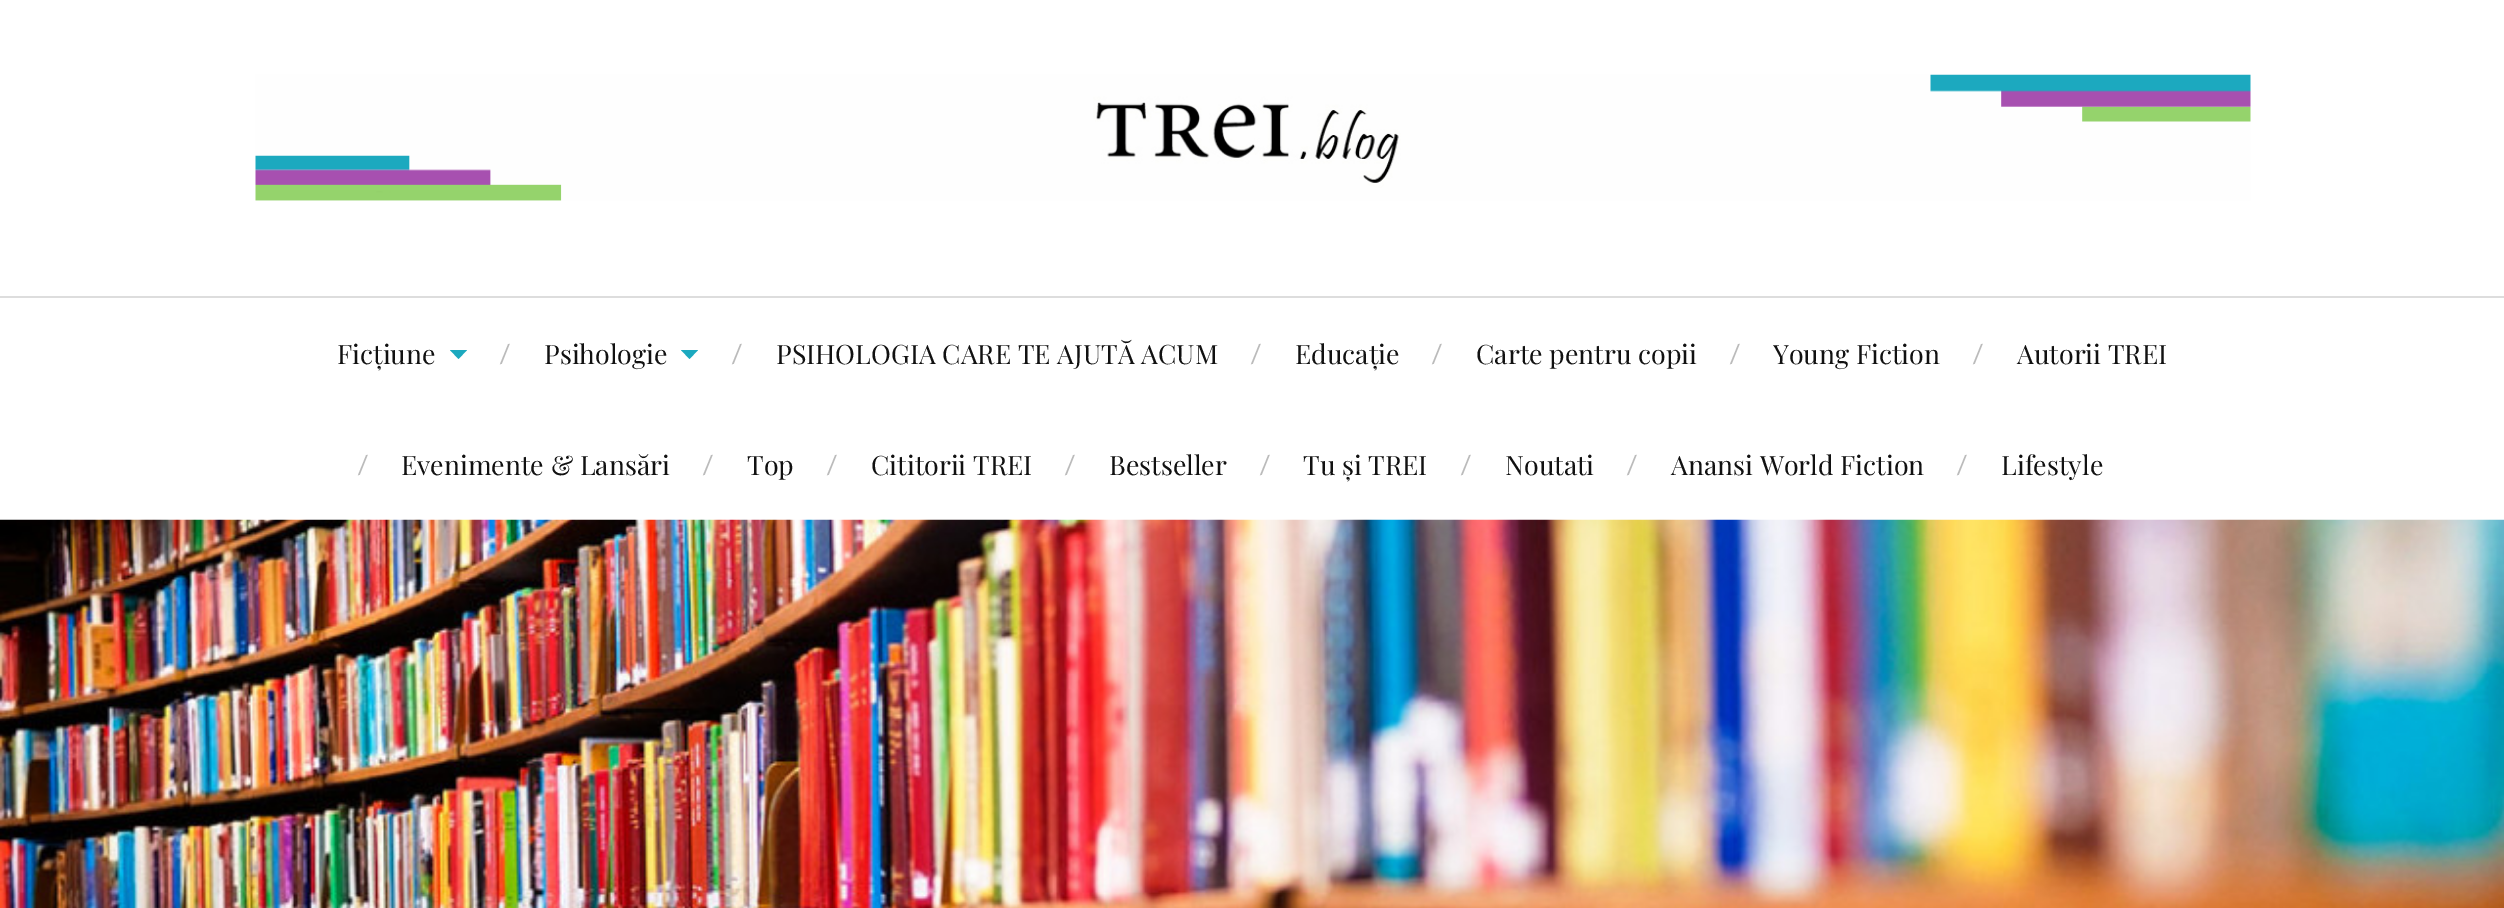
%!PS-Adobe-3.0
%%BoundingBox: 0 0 2504 908
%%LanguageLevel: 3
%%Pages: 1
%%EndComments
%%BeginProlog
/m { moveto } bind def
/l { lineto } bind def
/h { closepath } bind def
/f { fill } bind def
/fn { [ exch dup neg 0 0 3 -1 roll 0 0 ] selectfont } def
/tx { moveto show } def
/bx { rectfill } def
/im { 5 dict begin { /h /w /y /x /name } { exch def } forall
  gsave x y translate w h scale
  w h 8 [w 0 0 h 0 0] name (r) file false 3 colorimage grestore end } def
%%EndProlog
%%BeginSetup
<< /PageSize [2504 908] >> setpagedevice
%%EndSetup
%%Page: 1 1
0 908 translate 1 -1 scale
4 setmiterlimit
1 setgray
0 0 2504 908 bx
(image0.raw) 255 74 1996 127 im
0.867 setgray
0 296 2504 2 bx
/PlayfairDisplay-Regular 26.75 fn
0.067 setgray
(Ficțiune) 337 364 tx
0.11 0.663 0.749 setrgbcolor
450 350 m 467 350 l 458.5 359 l h f
/Lato-Regular 26 fn
0.733 setgray
(/) 500 363 tx
/PlayfairDisplay-Regular 26.75 fn
0.067 setgray
(Psihologie) 544 364 tx
0.11 0.663 0.749 setrgbcolor
681 350 m 698 350 l 689.5 359 l h f
/Lato-Regular 26 fn
0.733 setgray
(/) 732 363 tx
/PlayfairDisplay-Regular 26.75 fn
0.067 setgray
(PSIHOLOGIA CARE TE AJUTĂ ACUM) 776 364 tx
/Lato-Regular 26 fn
0.733 setgray
(/) 1251 363 tx
/PlayfairDisplay-Regular 26.75 fn
0.067 setgray
(Educație) 1295 364 tx
/Lato-Regular 26 fn
0.733 setgray
(/) 1432 363 tx
/PlayfairDisplay-Regular 26.75 fn
0.067 setgray
(Carte pentru copii) 1476 364 tx
/Lato-Regular 26 fn
0.733 setgray
(/) 1730 363 tx
/PlayfairDisplay-Regular 26.75 fn
0.067 setgray
(Young Fiction) 1773 364 tx
/Lato-Regular 26 fn
0.733 setgray
(/) 1973 363 tx
/PlayfairDisplay-Regular 26.75 fn
0.067 setgray
(Autorii TREI) 2017 364 tx
/Lato-Regular 26 fn
0.733 setgray
(/) 358 474 tx
/PlayfairDisplay-Regular 26.75 fn
0.067 setgray
(Evenimente & Lansări) 401 475 tx
/Lato-Regular 26 fn
0.733 setgray
(/) 703 474 tx
/PlayfairDisplay-Regular 26.75 fn
0.067 setgray
(Top) 747 475 tx
/Lato-Regular 26 fn
0.733 setgray
(/) 827 474 tx
/PlayfairDisplay-Regular 26.75 fn
0.067 setgray
(Cititorii TREI) 871 475 tx
/Lato-Regular 26 fn
0.733 setgray
(/) 1065 474 tx
/PlayfairDisplay-Regular 26.75 fn
0.067 setgray
(Bestseller) 1109 475 tx
/Lato-Regular 26 fn
0.733 setgray
(/) 1260 474 tx
/PlayfairDisplay-Regular 26.75 fn
0.067 setgray
(Tu și TREI) 1303 475 tx
/Lato-Regular 26 fn
0.733 setgray
(/) 1461 474 tx
/PlayfairDisplay-Regular 26.75 fn
0.067 setgray
(Noutati) 1505 475 tx
/Lato-Regular 26 fn
0.733 setgray
(/) 1627 474 tx
/PlayfairDisplay-Regular 26.75 fn
0.067 setgray
(Anansi World Fiction) 1671 475 tx
/Lato-Regular 26 fn
0.733 setgray
(/) 1957 474 tx
/PlayfairDisplay-Regular 26.75 fn
0.067 setgray
(Lifestyle) 2001 475 tx
(image1.raw) 0 519 2504 389 im
showpage
%%EOF
